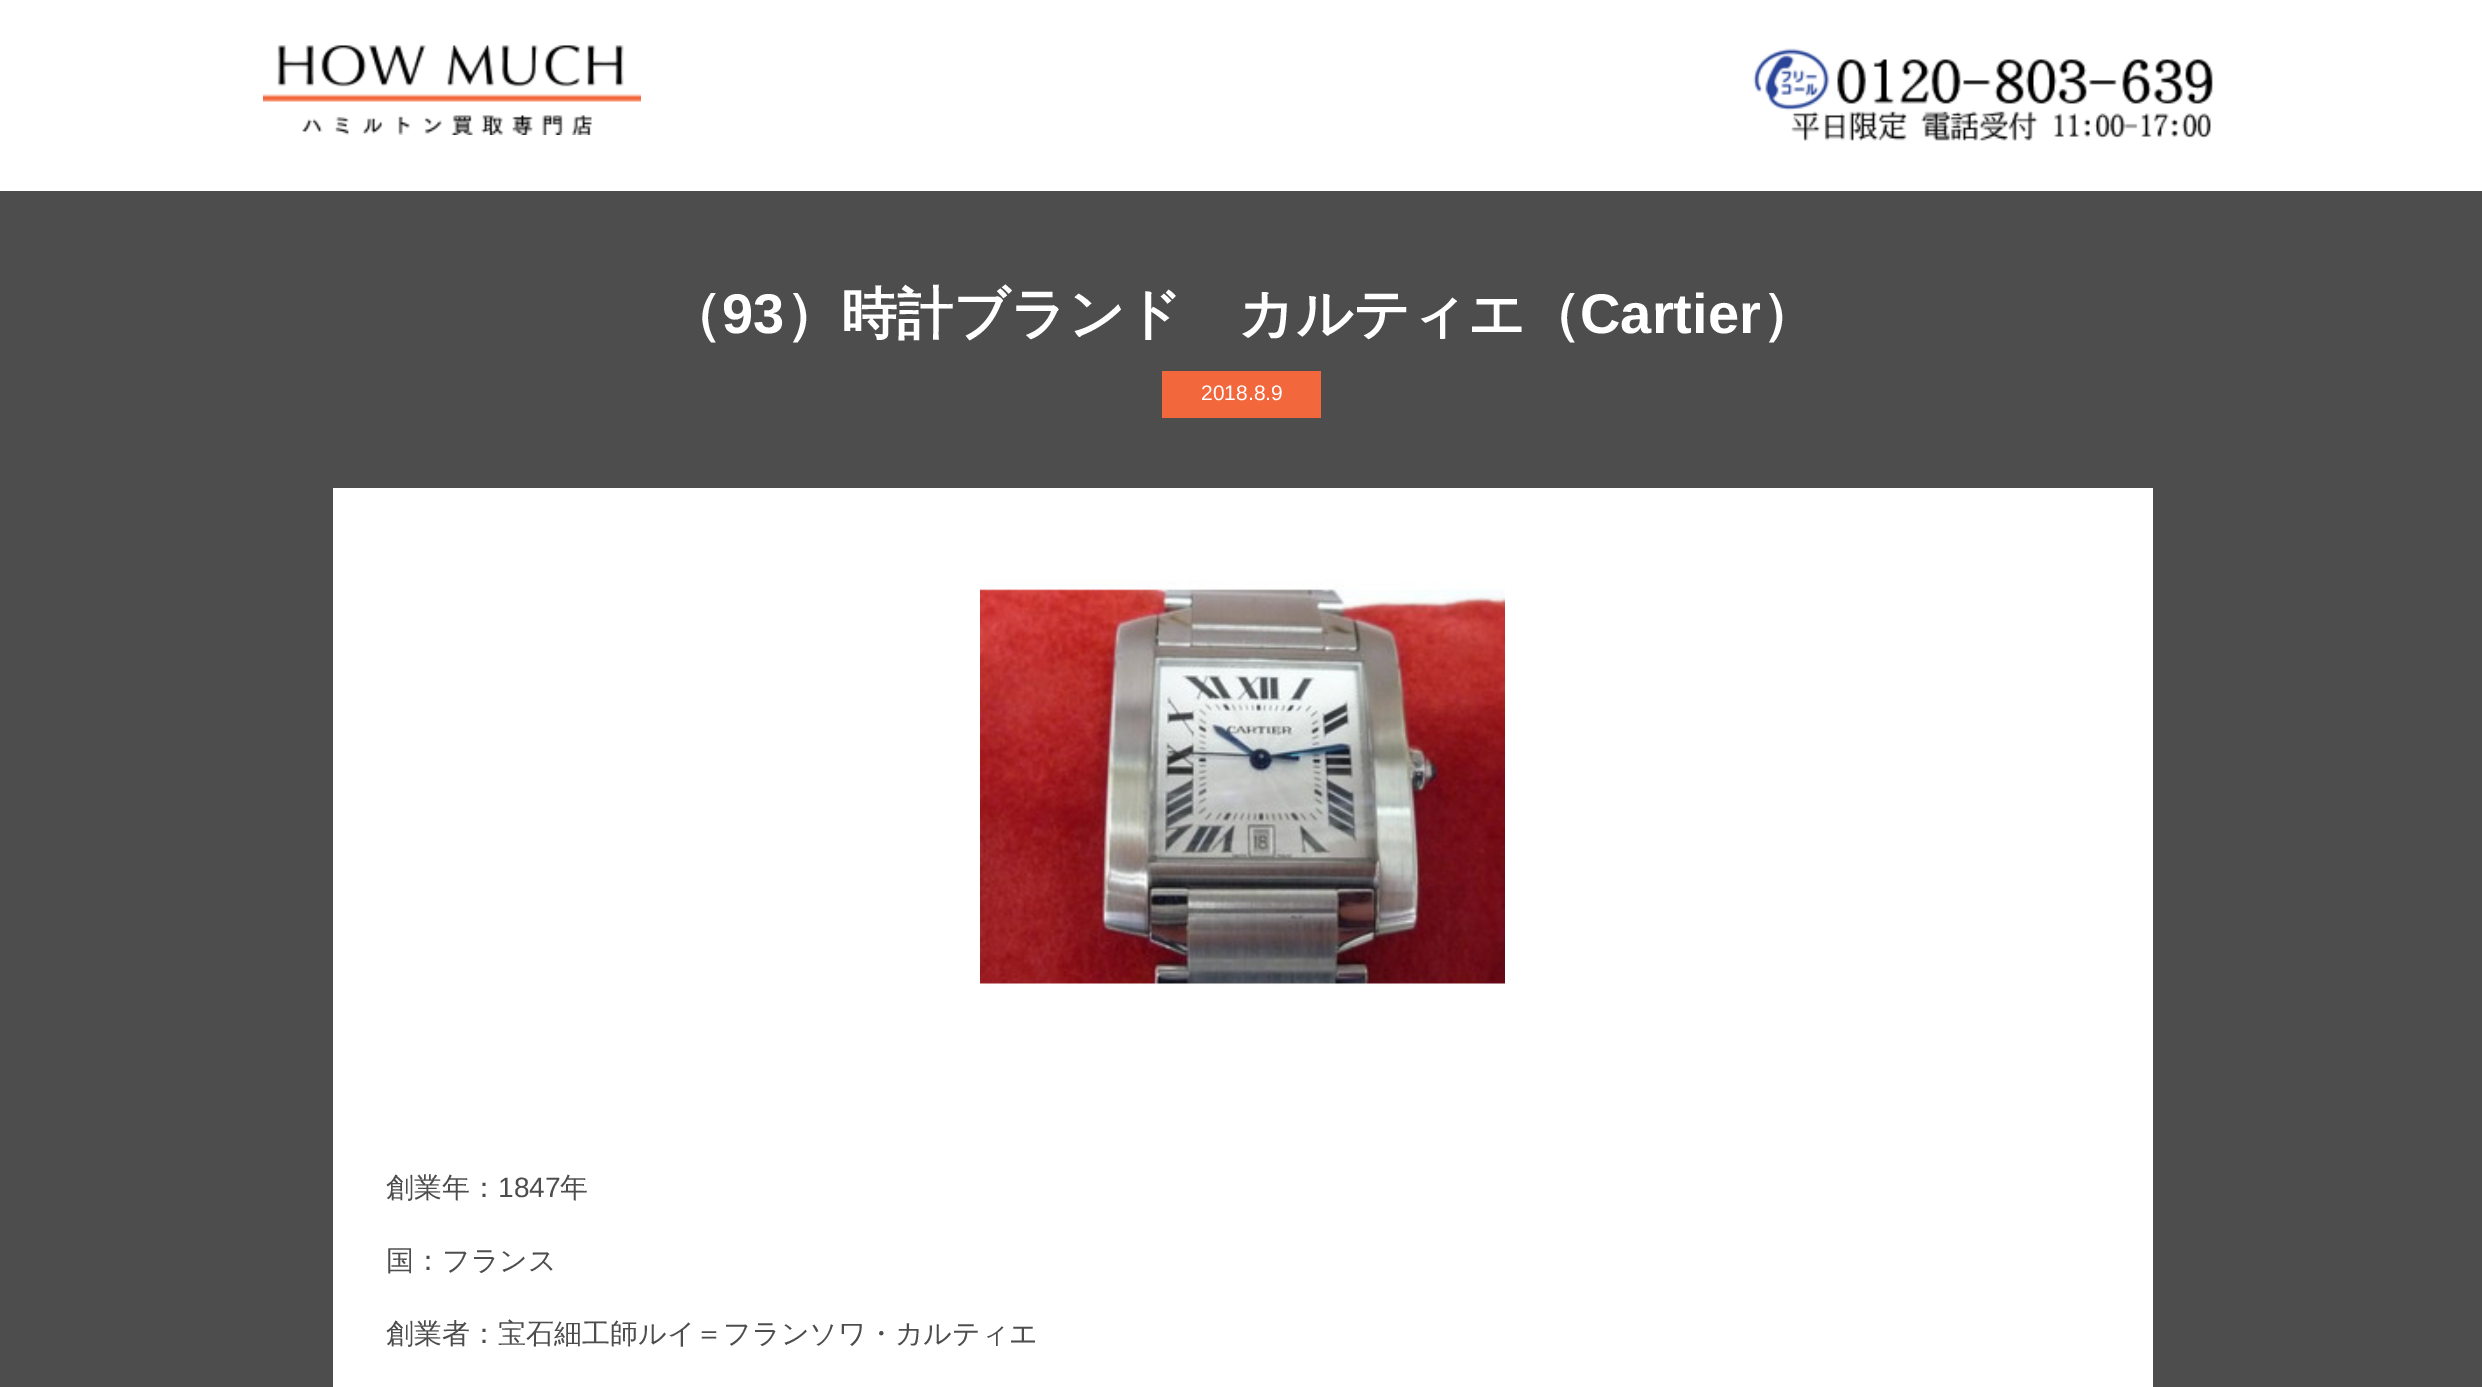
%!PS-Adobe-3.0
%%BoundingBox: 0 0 2482 1387
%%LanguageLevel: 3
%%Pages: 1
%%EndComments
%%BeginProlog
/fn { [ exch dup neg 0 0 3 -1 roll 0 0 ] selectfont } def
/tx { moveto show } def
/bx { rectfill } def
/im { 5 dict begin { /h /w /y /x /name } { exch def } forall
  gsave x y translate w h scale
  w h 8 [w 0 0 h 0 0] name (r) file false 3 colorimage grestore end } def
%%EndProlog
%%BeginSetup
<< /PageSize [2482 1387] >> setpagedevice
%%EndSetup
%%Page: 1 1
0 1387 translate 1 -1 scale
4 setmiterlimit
1 setgray
0 0 2482 1387 bx
(image0.raw) 263 45 378 90 im
(image1.raw) 1753 48 460 93 im
0.302 setgray
0 191 2482 1196 bx
/WenQuanYiZenHei-Bold 56 fn
1 setgray
(（) 666 333 tx
/LiberationSans-Bold 56 fn
(93) 722 333 tx
/WenQuanYiZenHei-Bold 56 fn
(）時計ブランド　カルティエ（) 785 333 tx
/LiberationSans-Bold 56 fn
(Cartier) 1580 333 tx
/WenQuanYiZenHei-Bold 56 fn
(）) 1761 333 tx
0.949 0.404 0.235 setrgbcolor
1162 371 159 47 bx
/LiberationSans-Regular 21 fn
1 setgray
(2018.8.9) 1201 400 tx
333 488 1820 899 bx
(image2.raw) 980 580 525 405 im
/WenQuanYiZenHei-Medium 28 fn
0.302 setgray
(創業年：) 386 1197 tx
/LiberationSans-Regular 28 fn
(1847) 498 1197 tx
/WenQuanYiZenHei-Medium 28 fn
(年) 560 1197 tx
(国：フランス) 386 1270 tx
(創業者：宝石細工師ルイ＝フランソワ・カルティエ) 386 1343 tx
showpage
%%EOF
